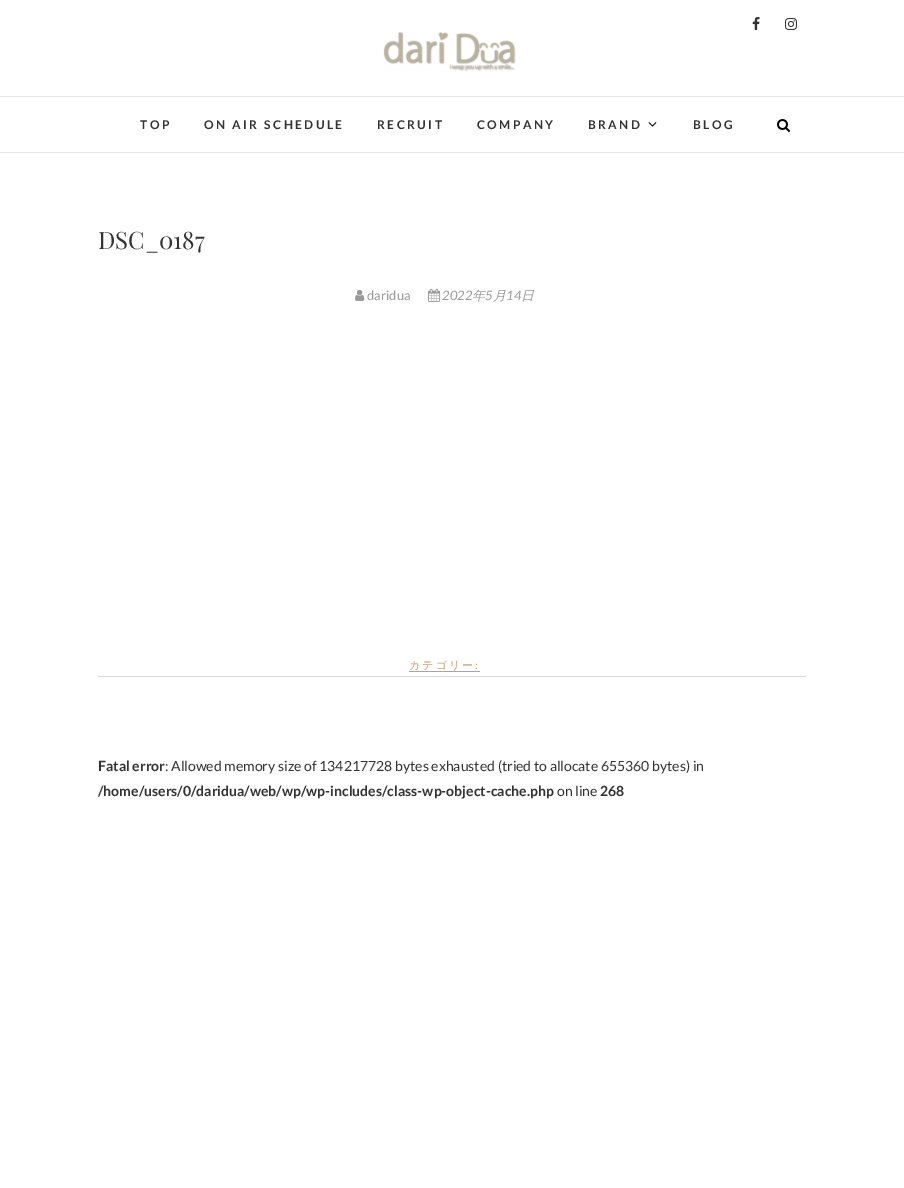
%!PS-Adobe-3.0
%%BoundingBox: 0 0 904 1188
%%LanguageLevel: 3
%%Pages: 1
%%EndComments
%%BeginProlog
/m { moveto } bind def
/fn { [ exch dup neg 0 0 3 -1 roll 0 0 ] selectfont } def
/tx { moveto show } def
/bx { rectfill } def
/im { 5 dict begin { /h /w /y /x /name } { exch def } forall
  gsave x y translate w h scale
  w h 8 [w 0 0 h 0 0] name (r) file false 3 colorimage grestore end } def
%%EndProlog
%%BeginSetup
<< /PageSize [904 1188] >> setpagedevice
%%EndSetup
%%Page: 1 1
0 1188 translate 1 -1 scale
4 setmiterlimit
1 setgray
0 0 904 1188 bx
0.902 setgray
0 96 904 1 bx
(image0.raw) 752 17 8 13 im
(image1.raw) 785 18 12 12 im
(image2.raw) 383 32 133 40 im
0 152 904 1 bx
/Lato-Bold 12 fn
0.2 setgray
140 129 m 2.4 0 (TOP) ashow
204 129 m 2.4 0 (ON AIR SCHEDULE) ashow
377 129 m 2.4 0 (RECRUIT) ashow
477 129 m 2.4 0 (COMPANY) ashow
588 129 m 2.4 0 (BRAND) ashow
(image3.raw) 648 122 9 5 im
693 129 m 2.4 0 (BLOG) ashow
(image4.raw) 777 119 13 13 im
/PlayfairDisplay-Regular 24 fn
(DSC_0187) 98 249 tx
(image5.raw) 355 289 10 12 im
/Lato-Regular 13 fn
0.6 setgray
(daridua) 367 300 tx
(image6.raw) 428 288 13 14 im
/Lato-Italic 13 fn
(2022) 442 300 tx
/WenQuanYiZenHei-MediumItalic 13 fn
(年) 472 300 tx
/Lato-Italic 13 fn
(5) 485 300 tx
/WenQuanYiZenHei-MediumItalic 13 fn
(月) 493 300 tx
/Lato-Italic 13 fn
(14) 506 300 tx
/WenQuanYiZenHei-MediumItalic 13 fn
(日) 521 300 tx
0.851 setgray
98 676 708 1 bx
/WenQuanYiZenHei-Medium 11 fn
0.776 0.624 0.439 setrgbcolor
409 669 m 2 0 (カテゴリー) ashow
/Lato-Regular 11 fn
475 669 m 2 0 (:) ashow
409 671 71 1 bx
/Lato-Bold 14 fn
0.2 setgray
(Fatal error) 98 771 tx
/Lato-Regular 14 fn
(: Allowed memory size of 134217728 bytes exhausted \(tried to allocate 655360 bytes\) in) 165 771 tx
/Lato-Bold 14 fn
(/home/users/0/daridua/web/wp/wp-includes/class-wp-object-cache.php) 98 796 tx
/Lato-Regular 14 fn
(on line) 557 796 tx
/Lato-Bold 14 fn
(268) 600 796 tx
showpage
%%EOF
